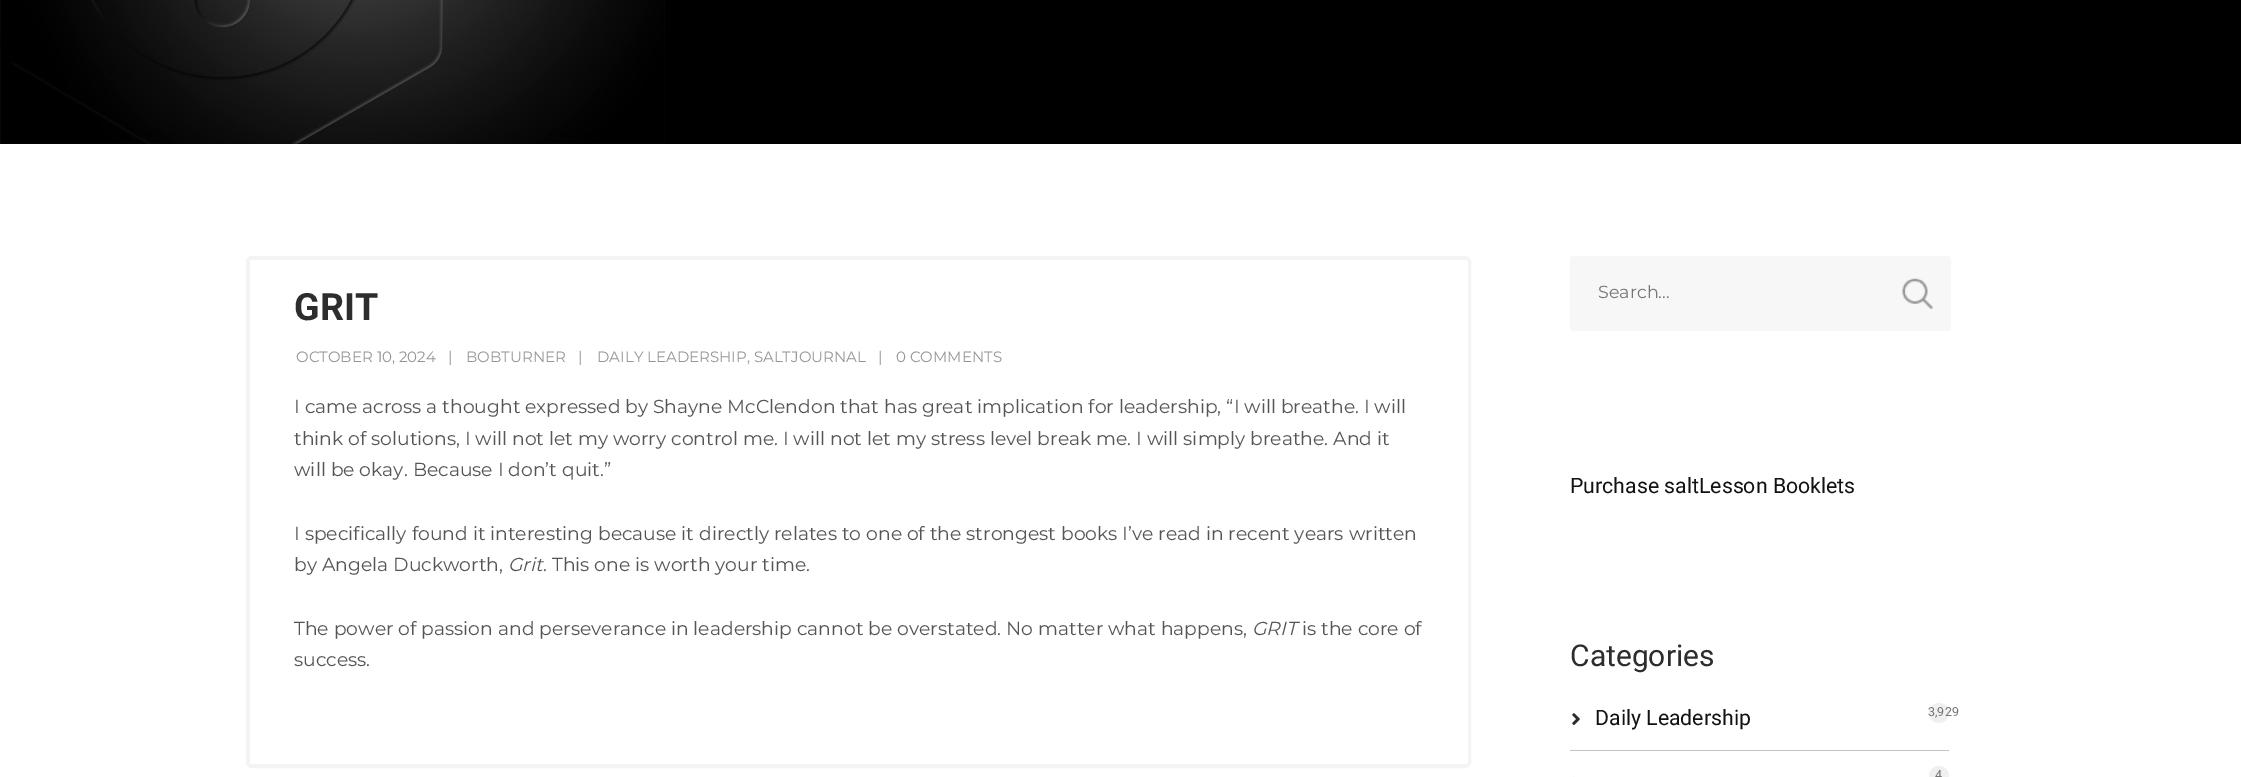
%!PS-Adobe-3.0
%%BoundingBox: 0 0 2241 777
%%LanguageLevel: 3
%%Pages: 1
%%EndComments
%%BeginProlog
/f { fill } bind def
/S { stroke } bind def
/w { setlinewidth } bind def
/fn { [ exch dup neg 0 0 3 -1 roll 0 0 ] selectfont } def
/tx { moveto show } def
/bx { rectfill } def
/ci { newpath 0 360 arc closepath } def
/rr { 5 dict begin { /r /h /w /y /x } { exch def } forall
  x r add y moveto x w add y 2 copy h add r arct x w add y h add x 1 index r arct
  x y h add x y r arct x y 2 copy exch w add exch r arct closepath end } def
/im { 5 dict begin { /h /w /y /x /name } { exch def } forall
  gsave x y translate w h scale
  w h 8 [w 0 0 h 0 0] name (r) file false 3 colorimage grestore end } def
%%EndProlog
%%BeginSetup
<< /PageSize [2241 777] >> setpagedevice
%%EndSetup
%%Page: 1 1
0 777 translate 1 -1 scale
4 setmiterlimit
1 setgray
0 0 2241 777 bx
0 setgray
0 0 2241 144 bx
(image0.raw) 0 0 665 144 im
0.957 setgray
4 w
248 258 1221 508 4 rr S
1 setgray
250 260 1218 504 bx
/Roboto-Bold 37.5 fn
0.176 setgray
(GRIT) 294 320 tx
/Montserrat-Regular 15 fn
0.584 setgray
(OCTOBER 10, 2024) 296 362 tx
(|) 448 362 tx
(BOBTURNER) 466 362 tx
(|) 578 362 tx
(DAILY LEADERSHIP, SALTJOURNAL) 597 362 tx
(|) 878 362 tx
(0 COMMENTS) 896 362 tx
/Montserrat-Regular 18.75 fn
0.333 setgray
(I came across a thought expressed by Shayne McClendon that has great implication for leadership, “I will breathe. I will) 294 413 tx
(think of solutions, I will not let my worry control me. I will not let my stress level break me. I will simply breathe. And it) 294 445 tx
(will be okay. Because I don’t quit.”) 294 476 tx
(I specifically found it interesting because it directly relates to one of the strongest books I’ve read in recent years written) 294 540 tx
(by Angela Duckworth,) 294 571 tx
/Montserrat-Italic 18.75 fn
(Grit) 508 571 tx
/Montserrat-Regular 18.75 fn
(. This one is worth your time.) 543 571 tx
(The power of passion and perseverance in leadership cannot be overstated. No matter what happens,) 294 635 tx
/Montserrat-Italic 18.75 fn
(GRIT) 1252 635 tx
/Montserrat-Regular 18.75 fn
(is the core of) 1302 635 tx
(success.) 294 666 tx
0.969 setgray
1570 256 381 75 4 rr f
(image1.raw) 1902 278 31 31 im
/Montserrat-Regular 17.5 fn
0.459 setgray
(Search...) 1598 298 tx
/Roboto-Regular 21.25 fn
0.071 0.071 0.075 setrgbcolor
(Purchase saltLesson Booklets) 1570 493 tx
/Roboto-Regular 30 fn
0.176 setgray
(Categories) 1570 666 tx
0.761 0.765 0.773 setrgbcolor
1570 750 379 1 bx
(image2.raw) 1572 713 8 12 im
/Roboto-Regular 21.25 fn
0.071 0.071 0.075 setrgbcolor
(Daily Leadership) 1595 725 tx
0.941 setgray
1939 713 10 ci f
/Roboto-Regular 12.5 fn
0.459 setgray
(3,929) 1928 716 tx
0.969 setgray
1573 776 1 1 bx
0.941 setgray
1939 776 10 ci f
0.459 setgray
(4) 1935 779 tx
showpage
%%EOF
